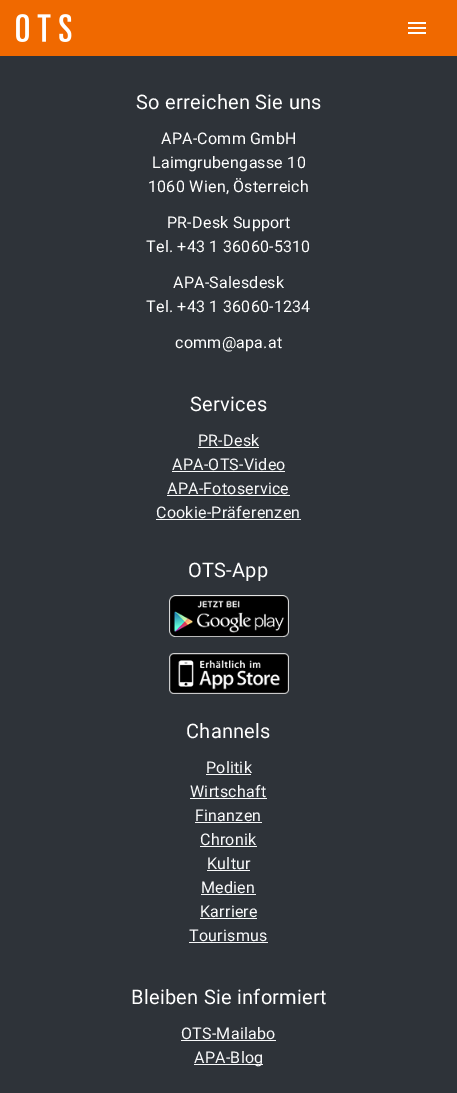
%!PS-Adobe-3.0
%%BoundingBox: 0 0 457 1093
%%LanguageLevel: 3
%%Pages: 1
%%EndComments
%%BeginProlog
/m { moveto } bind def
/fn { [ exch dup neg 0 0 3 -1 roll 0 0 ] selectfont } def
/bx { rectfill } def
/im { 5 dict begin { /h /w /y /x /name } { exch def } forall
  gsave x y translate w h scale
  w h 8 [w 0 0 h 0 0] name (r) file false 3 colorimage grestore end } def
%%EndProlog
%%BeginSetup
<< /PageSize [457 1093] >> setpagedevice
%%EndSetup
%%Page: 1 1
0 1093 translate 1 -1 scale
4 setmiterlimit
0.18 0.2 0.224 setrgbcolor
0 0 457 1093 bx
0.941 0.412 0 setrgbcolor
0 0 457 56 bx
(image0.raw) 16 14 56 28 im
(image1.raw) 408 22 18 12 im
/Roboto-Regular 20 fn
1 setgray
136 109 m 0.25 0 (So erreichen Sie uns) ashow
/Roboto-Regular 16 fn
161 144 m 0.25 0 (APA-Comm GmbH) ashow
152 168 m 0.25 0 (Laimgrubengasse 10) ashow
148 192 m 0.25 0 (1060 Wien, Österreich) ashow
167 228 m 0.25 0 (PR-Desk Support) ashow
146 252 m 0.25 0 (Tel. +43 1 36060-5310) ashow
173 288 m 0.25 0 (APA-Salesdesk) ashow
146 312 m 0.25 0 (Tel. +43 1 36060-1234) ashow
175 348 m 0.25 0 (comm@apa.at) ashow
/Roboto-Regular 20 fn
190 411 m 0.25 0 (Services) ashow
/Roboto-Regular 16 fn
0.973 0.976 0.98 setrgbcolor
198 446 m 0.25 0 (PR-Desk) ashow
198 447 61 1 bx
172 470 m 0.25 0 (APA-OTS-Video) ashow
172 471 113 1 bx
167 494 m 0.25 0 (APA-Fotoservice) ashow
167 495 123 1 bx
156 518 m 0.25 0 (Cookie-Präferenzen) ashow
156 519 145 1 bx
/Roboto-Regular 20 fn
1 setgray
188 577 m 0.25 0 (OTS-App) ashow
(image2.raw) 169 595 120 42 im
(image3.raw) 169 653 120 41 im
186 738 m 0.25 0 (Channels) ashow
/Roboto-Regular 16 fn
0.973 0.976 0.98 setrgbcolor
206 773 m 0.25 0 (Politik) ashow
206 774 45 1 bx
190 797 m 0.25 0 (Wirtschaft) ashow
190 798 77 1 bx
195 821 m 0.25 0 (Finanzen) ashow
195 822 67 1 bx
200 845 m 0.25 0 (Chronik) ashow
200 846 57 1 bx
207 869 m 0.25 0 (Kultur) ashow
207 870 43 1 bx
201 893 m 0.25 0 (Medien) ashow
201 894 55 1 bx
200 917 m 0.25 0 (Karriere) ashow
200 918 57 1 bx
189 941 m 0.25 0 (Tourismus) ashow
189 942 79 1 bx
/Roboto-Regular 20 fn
1 setgray
131 1004 m 0.25 0 (Bleiben Sie informiert) ashow
/Roboto-Regular 16 fn
0.973 0.976 0.98 setrgbcolor
181 1039 m 0.25 0 (OTS-Mailabo) ashow
181 1040 95 1 bx
194 1064 69 1 bx
194 1063 m 0.25 0 (APA-Blog) ashow
showpage
%%EOF
